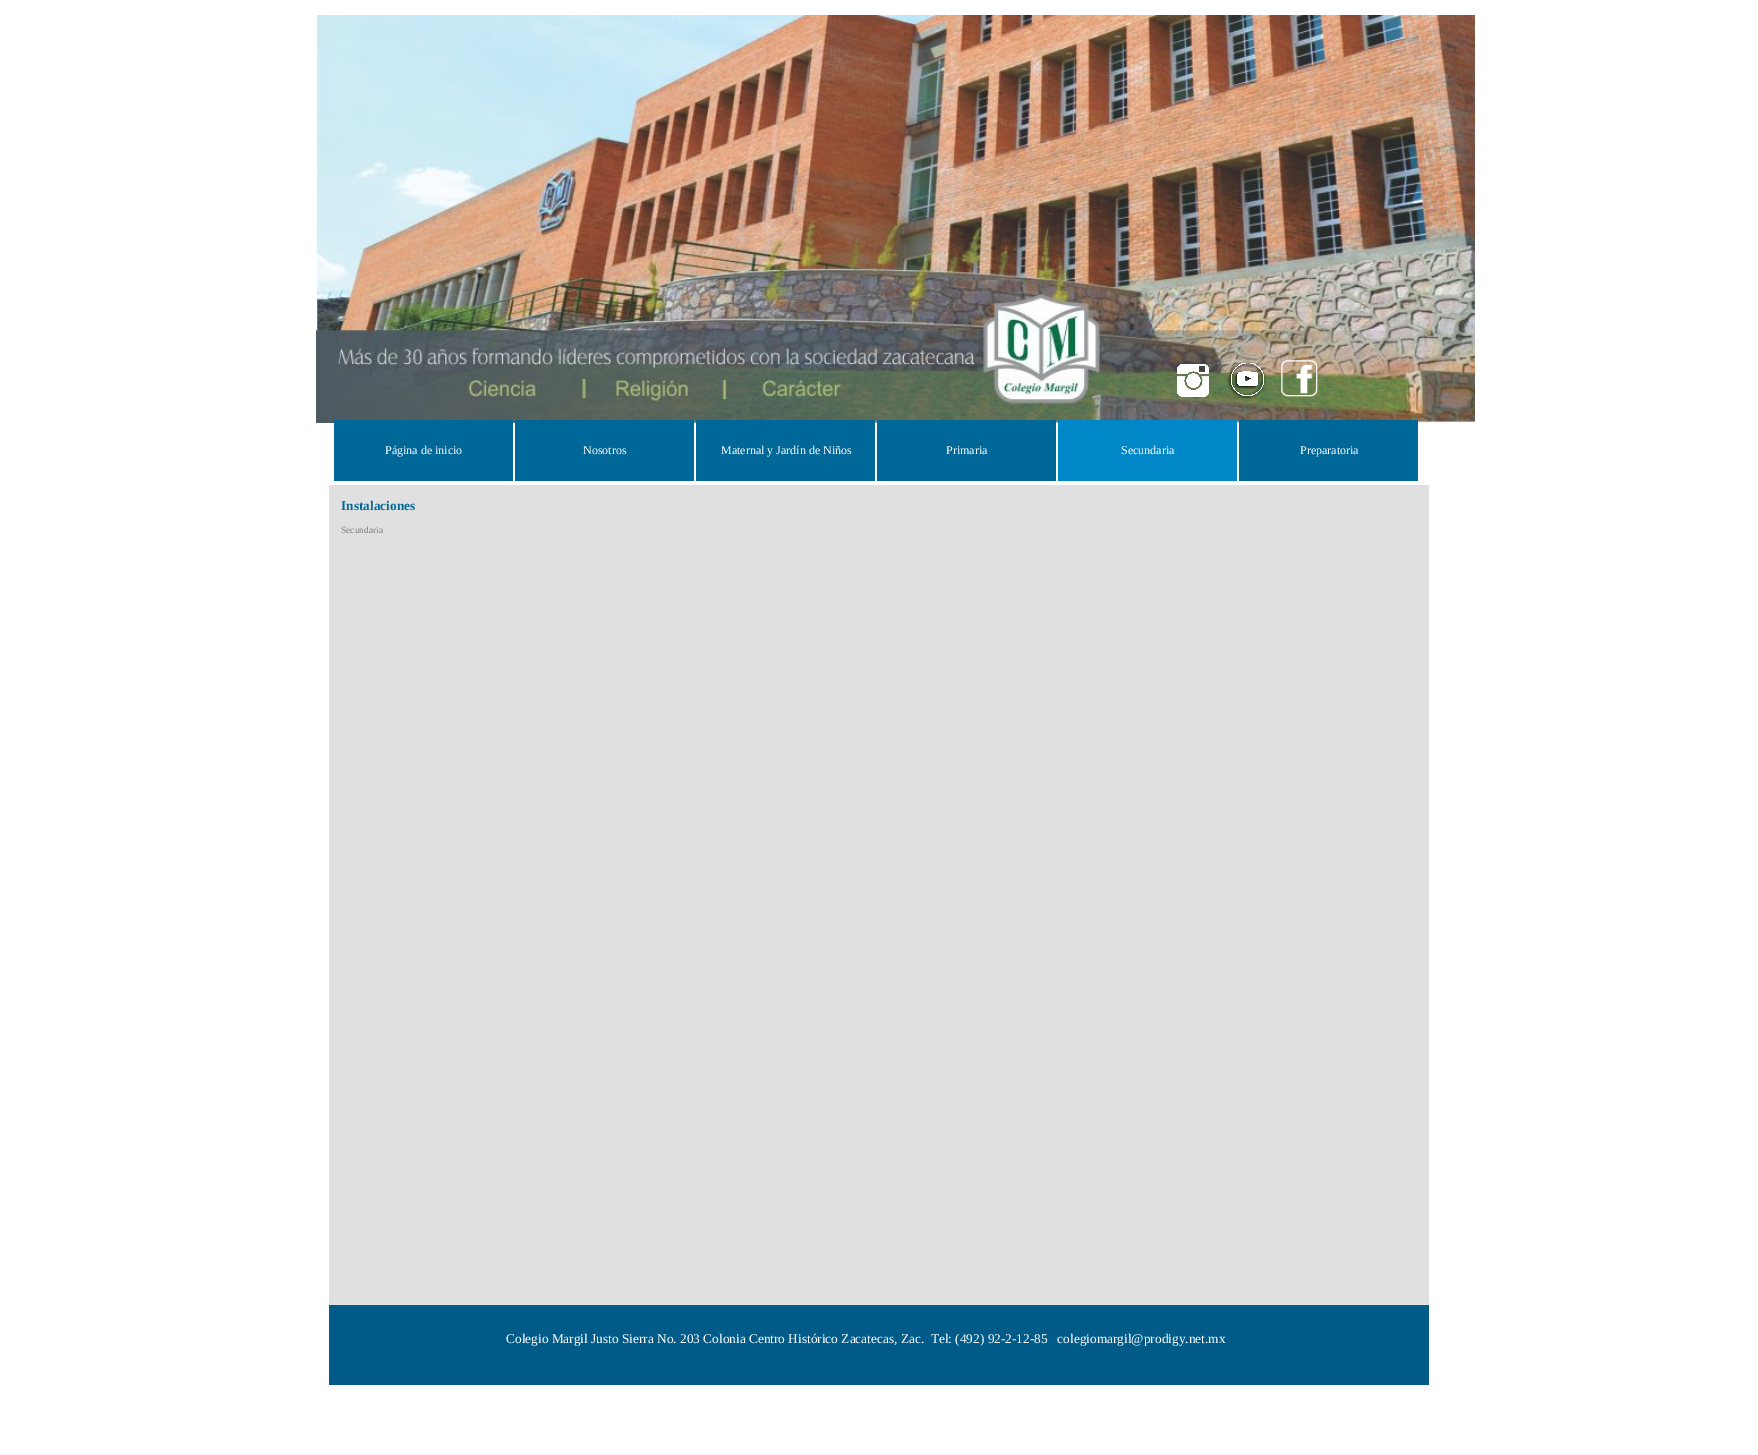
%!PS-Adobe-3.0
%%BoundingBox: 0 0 1758 1455
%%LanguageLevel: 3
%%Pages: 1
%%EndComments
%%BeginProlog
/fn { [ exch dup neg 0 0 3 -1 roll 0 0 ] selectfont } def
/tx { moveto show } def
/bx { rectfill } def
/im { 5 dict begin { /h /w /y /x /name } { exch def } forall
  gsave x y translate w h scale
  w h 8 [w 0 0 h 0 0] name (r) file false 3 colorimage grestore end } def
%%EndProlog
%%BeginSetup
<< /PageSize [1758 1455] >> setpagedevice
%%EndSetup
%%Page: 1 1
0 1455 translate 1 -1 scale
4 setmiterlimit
1 setgray
0 0 1758 1455 bx
(image0.raw) 316 15 1159 408 im
(image1.raw) 1177 364 32 33 im
(image2.raw) 1227 361 39 38 im
(image3.raw) 1281 360 37 37 im
0 0.404 0.6 setrgbcolor
334 420 179 61 bx
/LiberationSerif-Regular 12 fn
1 setgray
(Página de inicio) 385 454 tx
0 0.404 0.6 setrgbcolor
515 420 179 61 bx
1 setgray
(Nosotros) 583 454 tx
0 0.404 0.6 setrgbcolor
696 420 179 61 bx
1 setgray
(Maternal y Jardín de Niños) 721 454 tx
0 0.404 0.6 setrgbcolor
877 420 179 61 bx
1 setgray
(Primaria) 946 454 tx
0 0.529 0.784 setrgbcolor
1058 420 179 61 bx
1 setgray
(Secundaria) 1121 454 tx
0 0.404 0.6 setrgbcolor
1239 420 179 61 bx
1 setgray
(Preparatoria) 1300 454 tx
0.878 setgray
329 485 1100 820 bx
/LiberationSerif-Bold 13.33 fn
0 0.404 0.6 setrgbcolor
(Instalaciones) 341 510 tx
/LiberationSerif-Regular 9.5 fn
0.502 setgray
(Secundaria) 341 533 tx
0 0.357 0.533 setrgbcolor
329 1305 1100 80 bx
/LiberationSerif-Regular 13.33 fn
1 setgray
(Colegio Margil Justo Sierra No. 203 Colonia Centro Histórico Zacatecas, Zac.  Tel: \(492\) 92-2-12-85   colegiomargil@prodigy.net.mx) 506 1343 tx
showpage
%%EOF
